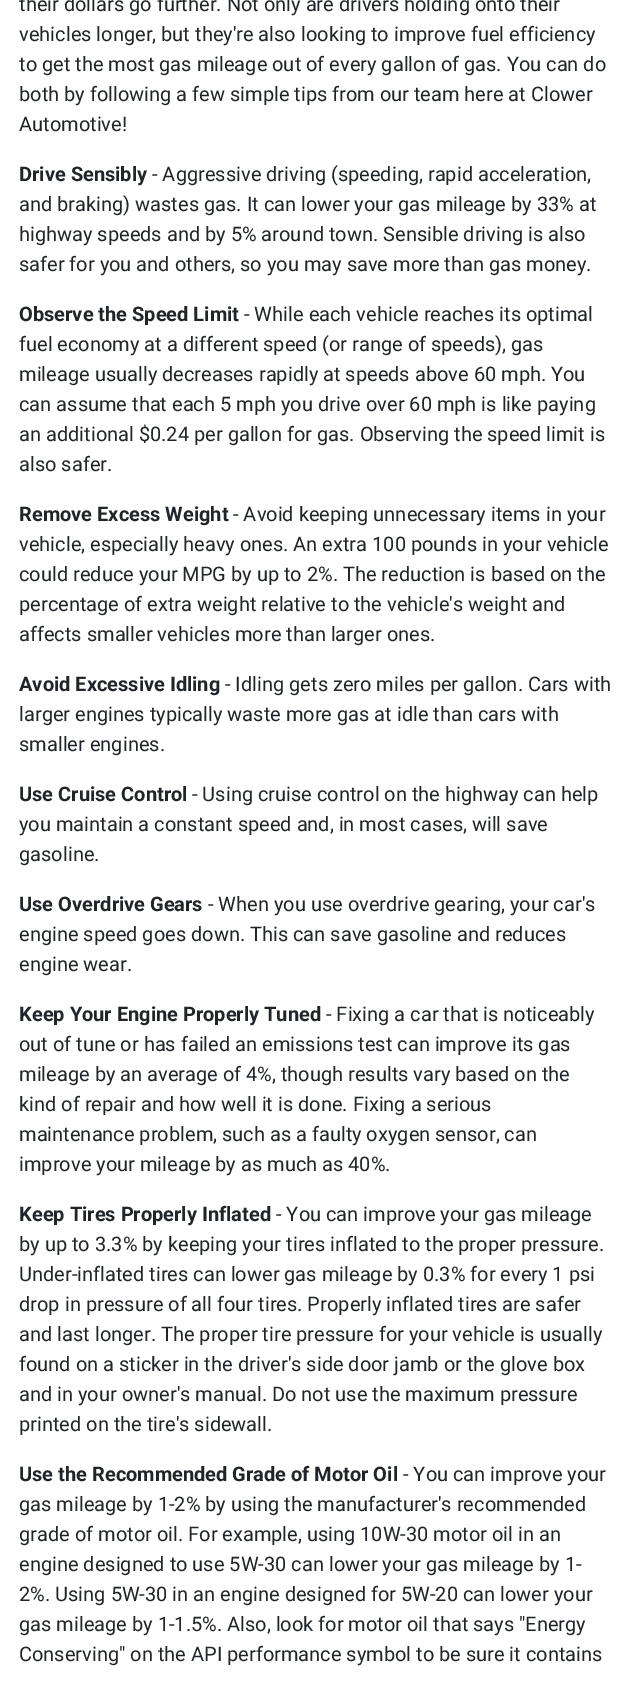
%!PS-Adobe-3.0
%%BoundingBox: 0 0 629 1682
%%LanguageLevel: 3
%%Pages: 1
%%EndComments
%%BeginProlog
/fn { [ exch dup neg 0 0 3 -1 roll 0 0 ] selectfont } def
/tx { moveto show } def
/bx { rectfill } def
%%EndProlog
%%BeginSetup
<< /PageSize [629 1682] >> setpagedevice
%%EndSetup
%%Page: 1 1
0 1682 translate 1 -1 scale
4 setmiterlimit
1 setgray
0 0 629 1682 bx
/Roboto-Regular 20 fn
0.129 0.145 0.161 setrgbcolor
(their dollars go further. Not only are drivers holding onto their) 19 11 tx
(vehicles longer, but they're also looking to improve fuel efficiency) 19 41 tx
(to get the most gas mileage out of every gallon of gas. You can do) 19 71 tx
(both by following a few simple tips from our team here at Clower) 19 101 tx
(Automotive!) 19 131 tx
/Roboto-Bold 20 fn
(Drive Sensibly) 19 181 tx
/Roboto-Regular 20 fn
(- Aggressive driving \(speeding, rapid acceleration,) 152 181 tx
(and braking\) wastes gas. It can lower your gas mileage by 33% at) 19 211 tx
(highway speeds and by 5% around town. Sensible driving is also) 19 241 tx
(safer for you and others, so you may save more than gas money.) 19 271 tx
/Roboto-Bold 20 fn
(Observe the Speed Limit) 19 321 tx
/Roboto-Regular 20 fn
(- While each vehicle reaches its optimal) 244 321 tx
(fuel economy at a different speed \(or range of speeds\), gas) 19 351 tx
(mileage usually decreases rapidly at speeds above 60 mph. You) 19 381 tx
(can assume that each 5 mph you drive over 60 mph is like paying) 19 411 tx
(an additional $0.24 per gallon for gas. Observing the speed limit is) 19 441 tx
(also safer.) 19 471 tx
/Roboto-Bold 20 fn
(Remove Excess Weight) 19 521 tx
/Roboto-Regular 20 fn
(- Avoid keeping unnecessary items in your) 233 521 tx
(vehicle, especially heavy ones. An extra 100 pounds in your vehicle) 19 551 tx
(could reduce your MPG by up to 2%. The reduction is based on the) 19 581 tx
(percentage of extra weight relative to the vehicle's weight and) 19 611 tx
(affects smaller vehicles more than larger ones.) 19 641 tx
/Roboto-Bold 20 fn
(Avoid Excessive Idling) 19 691 tx
/Roboto-Regular 20 fn
(- Idling gets zero miles per gallon. Cars with) 225 691 tx
(larger engines typically waste more gas at idle than cars with) 19 721 tx
(smaller engines.) 19 751 tx
/Roboto-Bold 20 fn
(Use Cruise Control) 19 801 tx
/Roboto-Regular 20 fn
(- Using cruise control on the highway can help) 192 801 tx
(you maintain a constant speed and, in most cases, will save) 19 831 tx
(gasoline.) 19 861 tx
/Roboto-Bold 20 fn
(Use Overdrive Gears) 19 911 tx
/Roboto-Regular 20 fn
(- When you use overdrive gearing, your car's) 208 911 tx
(engine speed goes down. This can save gasoline and reduces) 19 941 tx
(engine wear.) 19 971 tx
/Roboto-Bold 20 fn
(Keep Your Engine Properly Tuned) 19 1021 tx
/Roboto-Regular 20 fn
(- Fixing a car that is noticeably) 326 1021 tx
(out of tune or has failed an emissions test can improve its gas) 19 1051 tx
(mileage by an average of 4%, though results vary based on the) 19 1081 tx
(kind of repair and how well it is done. Fixing a serious) 19 1111 tx
(maintenance problem, such as a faulty oxygen sensor, can) 19 1141 tx
(improve your mileage by as much as 40%.) 19 1171 tx
/Roboto-Bold 20 fn
(Keep Tires Properly Inflated) 19 1221 tx
/Roboto-Regular 20 fn
(- You can improve your gas mileage) 276 1221 tx
(by up to 3.3% by keeping your tires inflated to the proper pressure.) 19 1251 tx
(Under-inflated tires can lower gas mileage by 0.3% for every 1 psi) 19 1281 tx
(drop in pressure of all four tires. Properly inflated tires are safer) 19 1311 tx
(and last longer. The proper tire pressure for your vehicle is usually) 19 1341 tx
(found on a sticker in the driver's side door jamb or the glove box) 19 1371 tx
(and in your owner's manual. Do not use the maximum pressure) 19 1401 tx
(printed on the tire's sidewall.) 19 1431 tx
/Roboto-Bold 20 fn
(Use the Recommended Grade of Motor Oil) 19 1481 tx
/Roboto-Regular 20 fn
(- You can improve your) 403 1481 tx
(gas mileage by 1-2% by using the manufacturer's recommended) 19 1511 tx
(grade of motor oil. For example, using 10W-30 motor oil in an) 19 1541 tx
(engine designed to use 5W-30 can lower your gas mileage by 1-) 19 1571 tx
(2%. Using 5W-30 in an engine designed for 5W-20 can lower your) 19 1601 tx
(gas mileage by 1-1.5%. Also, look for motor oil that says "Energy) 19 1631 tx
(Conserving" on the API performance symbol to be sure it contains) 19 1661 tx
showpage
%%EOF
